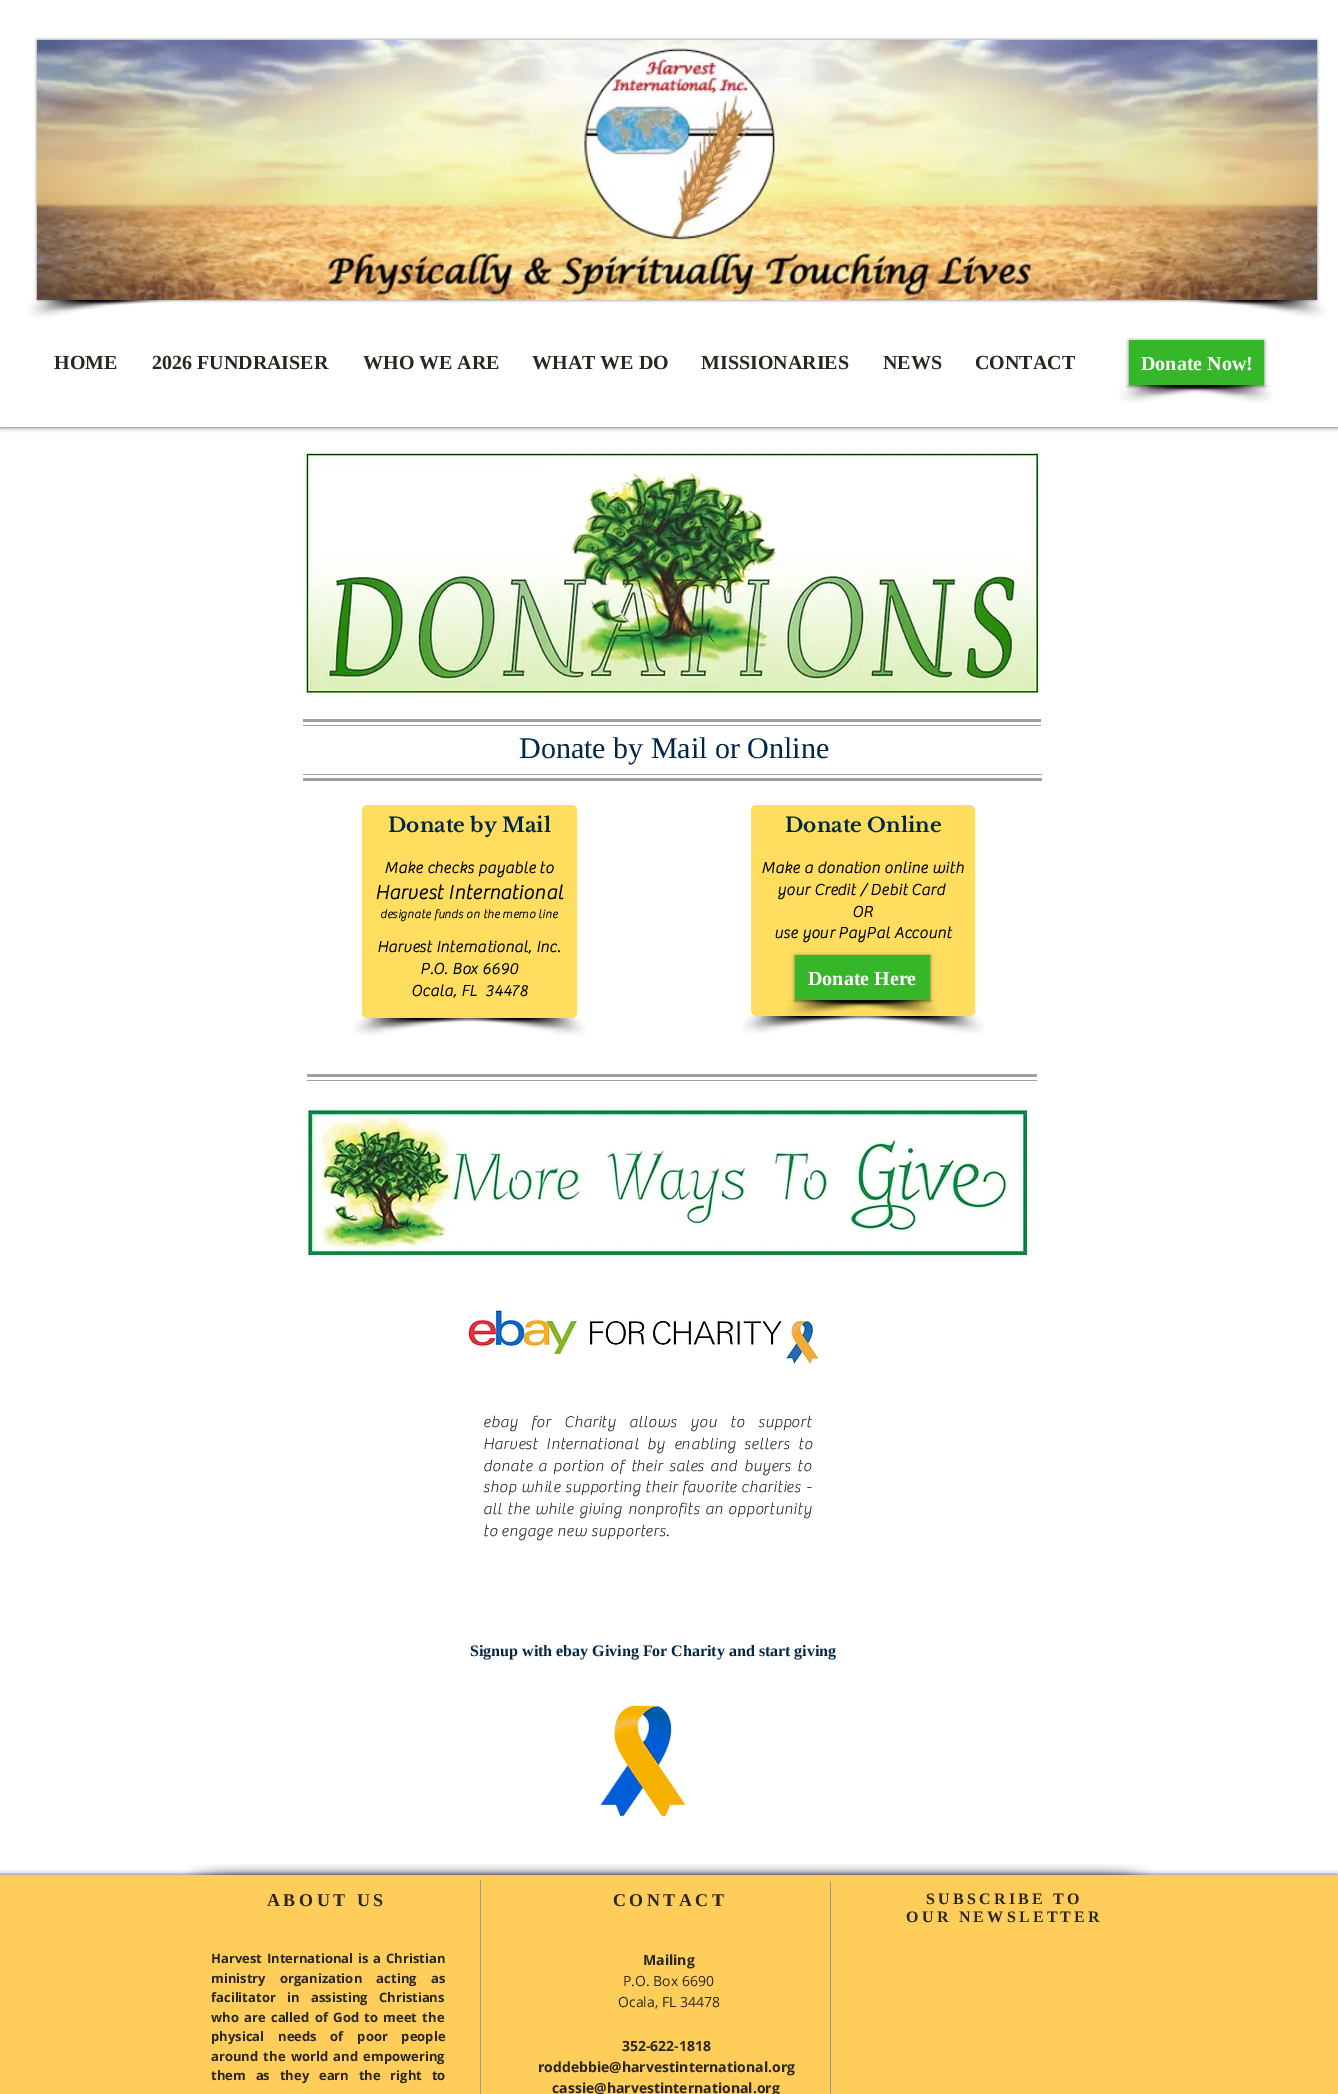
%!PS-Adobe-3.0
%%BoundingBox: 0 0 1338 2094
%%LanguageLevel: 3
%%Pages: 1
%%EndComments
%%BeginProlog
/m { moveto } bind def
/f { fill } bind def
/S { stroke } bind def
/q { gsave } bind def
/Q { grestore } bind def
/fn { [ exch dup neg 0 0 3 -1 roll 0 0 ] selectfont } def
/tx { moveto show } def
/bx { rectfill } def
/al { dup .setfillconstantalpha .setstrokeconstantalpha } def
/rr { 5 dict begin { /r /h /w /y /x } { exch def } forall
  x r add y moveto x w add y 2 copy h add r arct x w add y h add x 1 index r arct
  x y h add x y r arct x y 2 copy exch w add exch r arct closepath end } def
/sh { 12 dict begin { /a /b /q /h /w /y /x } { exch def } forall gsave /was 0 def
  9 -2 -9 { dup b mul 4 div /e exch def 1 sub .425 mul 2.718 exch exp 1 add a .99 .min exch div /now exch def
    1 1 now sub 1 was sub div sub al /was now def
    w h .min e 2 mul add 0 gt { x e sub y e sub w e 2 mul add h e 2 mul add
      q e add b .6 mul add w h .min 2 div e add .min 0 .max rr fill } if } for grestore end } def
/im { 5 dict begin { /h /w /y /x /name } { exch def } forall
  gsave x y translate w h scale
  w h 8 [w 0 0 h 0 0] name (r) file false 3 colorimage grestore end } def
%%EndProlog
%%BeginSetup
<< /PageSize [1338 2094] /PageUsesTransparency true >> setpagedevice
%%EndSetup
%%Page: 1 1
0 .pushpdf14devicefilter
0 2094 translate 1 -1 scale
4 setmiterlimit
1 setgray
0 0 1338 2094 bx
0 setgray
0 0 1338 427 0 2.5 0.7 sh
1 setgray
0 0 1338 427 bx
0 setgray
37 40 1280 260 0 1.5 0.5 sh
(image0.raw) 37 40 1280 260 im
(image1.raw) 28 300 154 18 im
(image2.raw) 1172 300 154 18 im
/LiberationSerif-Bold 20 fn
0.161 0.153 0.125 setrgbcolor
(HOME) 54 369 tx
(2026 FUNDRAISER) 152 369 tx
(WHO WE ARE) 363 369 tx
(WHAT WE DO) 532 369 tx
(MISSIONARIES) 701 369 tx
(NEWS) 883 369 tx
(CONTACT) 975 369 tx
(image4.raw) 1120 385 154 18 im
(image3.raw) 1119 385 154 18 im
0 setgray
1129 341 135 45 0 2 0.6 sh
0.208 0.718 0.161 setrgbcolor
1129 340 135 45 bx
1 setgray
(Donate Now!) 1141 370 tx
(image5.raw) 303 453 737 240 im
0.627 0.627 0.624 setrgbcolor
303 719 738 3 bx
303 725 738 1 bx
/LiberationSerif-Regular 30 fn
0.004 0.149 0.275 setrgbcolor
(Donate by Mail or Online) 519 758 tx
0.627 0.627 0.624 setrgbcolor
303 778 739 3 bx
303 774 739 1 bx
1 0.871 0.373 setrgbcolor
362.5 805.5 214 212 4.5 rr q f Q
S
/LibreBaskerville-Bold 20 fn
0.004 0.149 0.275 setrgbcolor
(Donate by Mail) 388 832 tx
/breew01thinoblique-Bold 16 fn
0 setgray
384 873 m 0.5 0 (Make checks payable to) ashow
/breew01thinoblique-Bold 20 fn
375 899 m 0.6 0 (Harvest International) ashow
/breew01thinoblique-Bold 12 fn
380 918 m 0.35 0 (designate funds on the memo line) ashow
/breew01thinoblique-Bold 16 fn
377 952 m 0.5 0 (Harvest International, Inc.) ashow
420 974 m 0.5 0 (P.O. Box 6690) ashow
411 996 m 0.5 0 (Ocala, FL  34478) ashow
(image4.raw) 353 1018 154 18 im
(image6.raw) 449 1018 137 18 im
1 0.871 0.373 setrgbcolor
751.5 805.5 223 210 4.5 rr q f Q
S
/LibreBaskerville-Bold 20 fn
0.004 0.149 0.275 setrgbcolor
(Donate Online) 785 832 tx
/breew01thinoblique-Bold 16 fn
0 setgray
761 873 m 0.5 0 (Make a donation online with) ashow
777 895 m 0.5 0 (your Credit / Debit Card) ashow
852 917 m 0.5 0 (OR) ashow
774 938 m 0.5 0 (use your PayPal Account) ashow
(image8.raw) 786 1000 154 16 im
(image7.raw) 785 1000 154 16 im
795 956 135 45 0 2 0.6 sh
0.208 0.718 0.161 setrgbcolor
795 955 135 45 bx
/LiberationSerif-Bold 20 fn
1 setgray
(Donate Here) 808 985 tx
(image4.raw) 742 1016 154 18 im
(image9.raw) 843 1016 141 18 im
0.627 0.627 0.624 setrgbcolor
307 1074 730 3 bx
307 1080 730 1 bx
(image10.raw) 303 1107 727 151 im
(image11.raw) 468 1310 351 54 im
/breew01thinoblique-Thin 16 fn
0 setgray
483 1427 m 9 0 32 0.5 0 (ebay for Charity allows you to support) awidthshow
483 1449 m 4.5 0 32 0.5 0 (Harvest International by enabling sellers to) awidthshow
483 1471 m 2 0 32 0.5 0 (donate a portion of their sales and buyers to) awidthshow
483 1492 m 0.5 0 32 0.5 0 (shop while supporting their favorite charities -) awidthshow
483 1514 m 1 0 32 0.5 0 (all the while giving nonprofits an opportunity) awidthshow
483 1536 m 0.5 0 (to engage new supporters.) ashow
/LiberationSerif-Bold 16 fn
0.004 0.149 0.275 setrgbcolor
(Signup with ebay Giving For Charity and start giving) 470 1656 tx
(image12.raw) 600 1705 86 112 im
0 setgray
0 1875 1338 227 0 2.5 0.7 sh
1 0.804 0.349 setrgbcolor
0 1875 1338 219 bx
(image13.raw) 182 1864 97 11 im
(image14.raw) 279 1864 780 11 im
(image15.raw) 1059 1864 97 11 im
/LiberationSerif-Bold 18 fn
0.161 0.153 0.125 setrgbcolor
267 1906 m 3.5 0 (ABOUT US) ashow
0.6 setgray
480 1880 1 214 bx
0.161 0.153 0.125 setrgbcolor
613 1906 m 3.5 0 (CONTACT) ashow
0.6 setgray
830 1882 1 212 bx
/LiberationSerif-Bold 16 fn
0.161 0.153 0.125 setrgbcolor
926 1904 m 3.25 0 (SUBSCRIBE TO) ashow
906 1922 m 3.25 0 (OUR NEWSLETTER) ashow
/OpenSans-Bold 13 fn
211 1963 m 1.5 0 32 (Harvest International is a Christian) widthshow
211 1983 m 11 0 32 (ministry organization acting as) widthshow
211 2002 m 8 0 32 (facilitator in assisting Christians) widthshow
211 2022 m 2 0 32 (who are called of God to meet the) widthshow
211 2041 m 10.5 0 32 (physical needs of poor people) widthshow
211 2061 m 2 0 32 (around the world and empowering) widthshow
211 2080 m 6.5 0 32 (them as they earn the right to) widthshow
/OpenSans-Bold 14 fn
(Mailing) 643 1965 tx
/OpenSans-Regular 14 fn
(P.O. Box 6690) 623 1986 tx
(Ocala, FL 34478) 618 2007 tx
/OpenSans-Bold 14 fn
(352-622-1818) 622 2051 tx
(roddebbie@harvestinternational.org) 538 2072 tx
(cassie@harvestinternational.org) 552 2093 tx
.poppdf14devicefilter showpage
%%EOF
